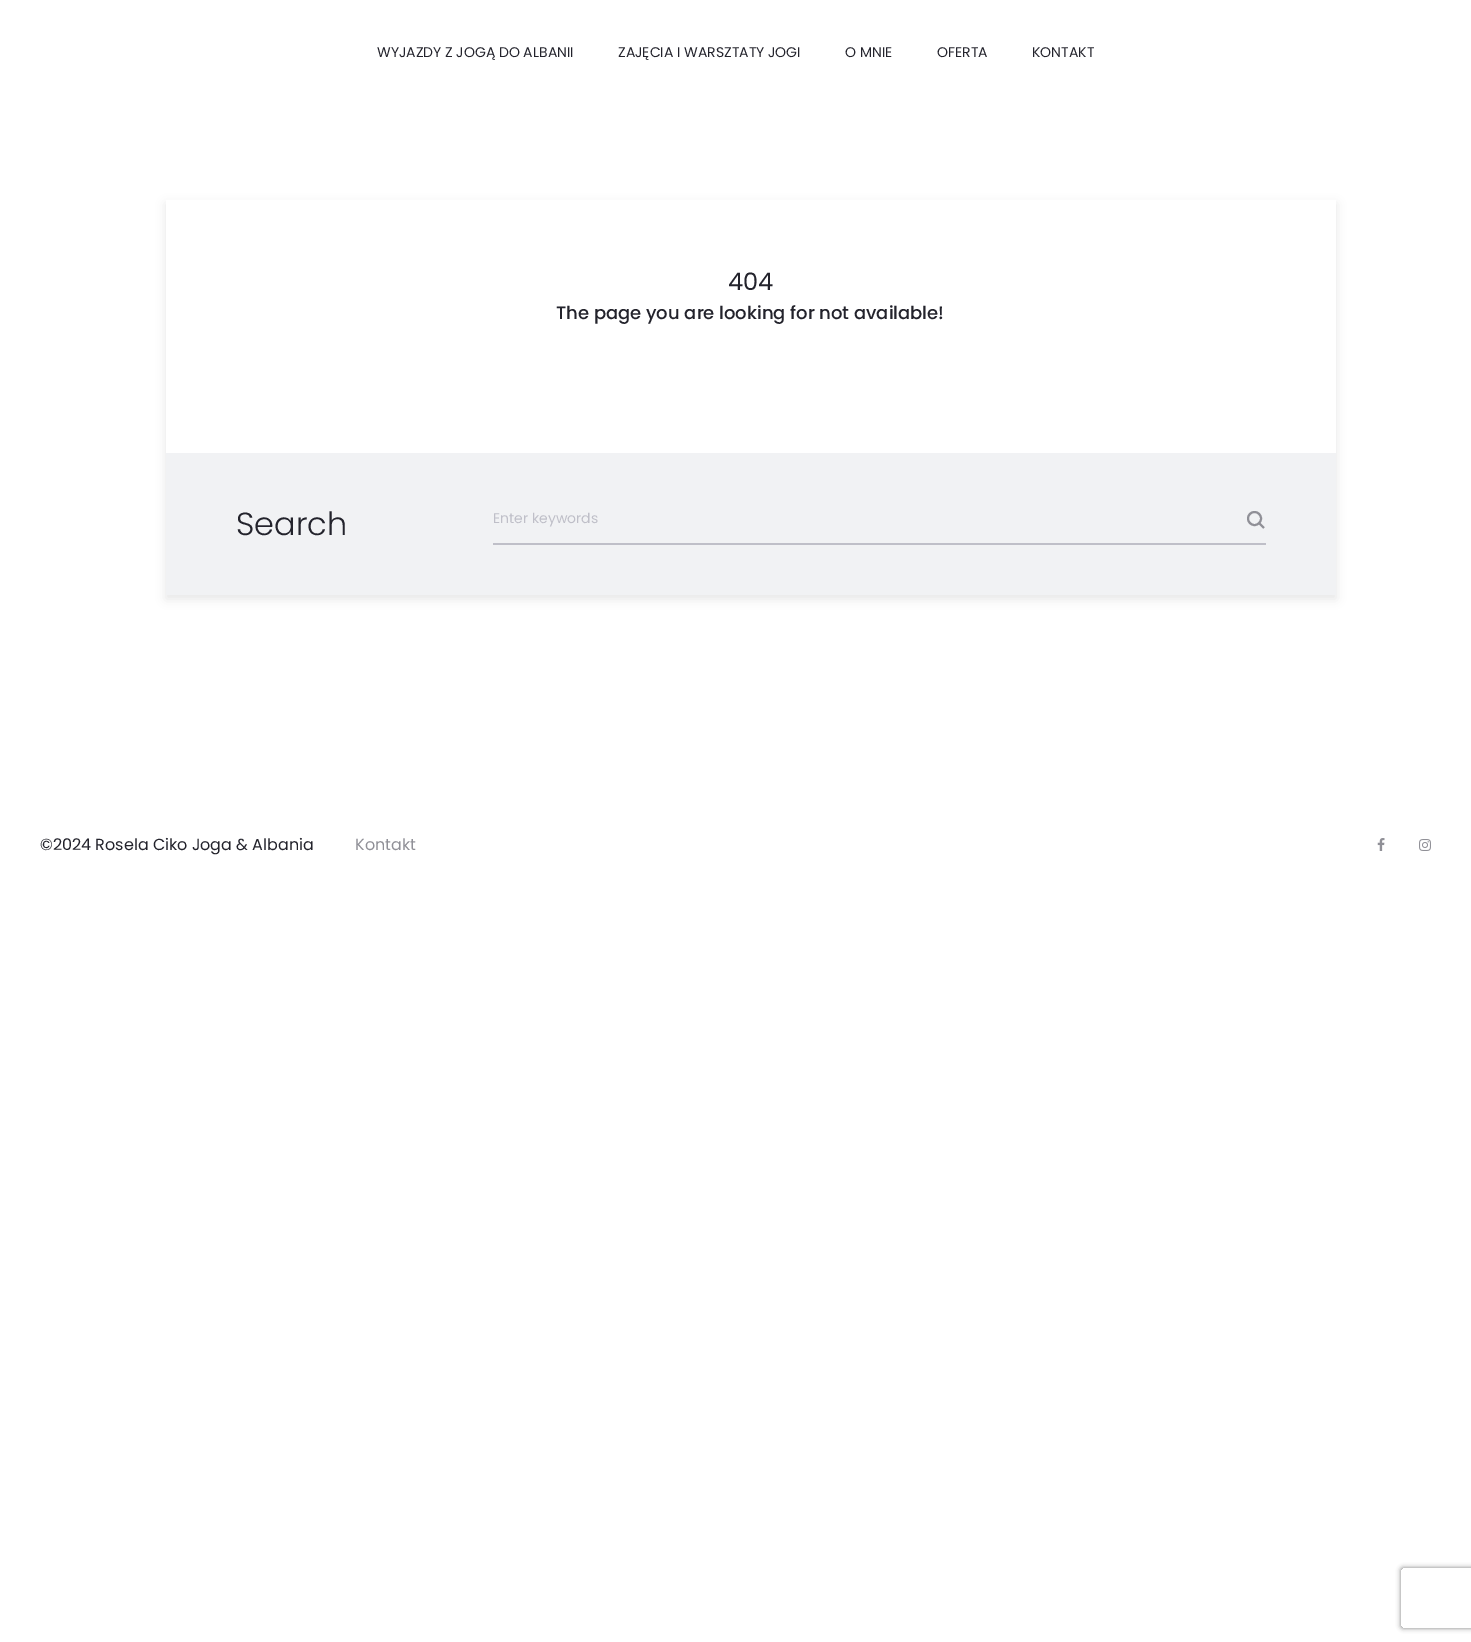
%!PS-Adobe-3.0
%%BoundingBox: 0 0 1471 1642
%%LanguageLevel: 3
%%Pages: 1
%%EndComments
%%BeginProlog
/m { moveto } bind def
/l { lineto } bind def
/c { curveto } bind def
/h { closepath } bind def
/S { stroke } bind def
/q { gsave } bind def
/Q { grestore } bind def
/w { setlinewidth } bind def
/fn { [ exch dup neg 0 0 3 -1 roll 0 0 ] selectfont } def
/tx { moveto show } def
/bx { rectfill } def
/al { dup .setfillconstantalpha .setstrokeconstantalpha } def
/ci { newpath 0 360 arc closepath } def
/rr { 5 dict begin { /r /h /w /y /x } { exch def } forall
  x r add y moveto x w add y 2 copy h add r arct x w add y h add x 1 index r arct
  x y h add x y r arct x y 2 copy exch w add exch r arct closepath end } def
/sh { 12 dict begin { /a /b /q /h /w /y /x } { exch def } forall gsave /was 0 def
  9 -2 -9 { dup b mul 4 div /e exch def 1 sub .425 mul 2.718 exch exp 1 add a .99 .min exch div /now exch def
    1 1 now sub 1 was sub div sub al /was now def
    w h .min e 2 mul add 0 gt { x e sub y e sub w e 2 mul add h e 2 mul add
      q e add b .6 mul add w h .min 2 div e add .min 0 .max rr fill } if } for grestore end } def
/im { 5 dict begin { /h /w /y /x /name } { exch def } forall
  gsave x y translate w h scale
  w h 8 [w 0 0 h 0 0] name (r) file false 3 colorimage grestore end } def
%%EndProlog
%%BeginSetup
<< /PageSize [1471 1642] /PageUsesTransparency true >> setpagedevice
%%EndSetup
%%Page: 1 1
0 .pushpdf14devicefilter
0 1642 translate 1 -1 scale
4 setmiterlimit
1 setgray
0 0 1471 1642 bx
/Poppins-Regular 14 fn
0.137 0.137 0.173 setrgbcolor
(WYJAZDY Z JOGĄ DO ALBANII) 377 57 tx
(ZAJĘCIA I WARSZTATY JOGI) 618 57 tx
(O MNIE) 845 57 tx
(OFERTA) 937 57 tx
(KONTAKT) 1032 57 tx
q
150 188 m 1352 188 l 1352 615 l 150 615 l h 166 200 m 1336 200 l 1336 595 l 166 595 l h eoclip newpath
0.012 setgray
166 204 1170 395 0 5 0.1 sh
Q
/Poppins-Regular 24 fn
(404) 728 290 tx
/Poppins-Medium 18 fn
(The page you are looking for not available!) 556 319 tx
0.945 0.949 0.957 setrgbcolor
166 453 1170 142 bx
/Poppins-Light 32 fn
0.137 0.137 0.173 setrgbcolor
(Search) 236 535 tx
0.749 0.749 0.784 setrgbcolor
493 543 773 2 bx
/Poppins-Regular 14 fn
(Enter keywords) 493 523 tx
0.565 0.565 0.592 setrgbcolor
2 w
1254.5 518.5 6.5 ci S
1259 523 m 1264 528 l S
/Poppins-Regular 16 fn
0.137 0.137 0.173 setrgbcolor
(©2024 Rosela Ciko Joga & Albania) 40 850 tx
0.565 0.565 0.592 setrgbcolor
(Kontakt) 355 850 tx
(image0.raw) 1377 838 8 13 im
(image1.raw) 1419 839 12 12 im
q
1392 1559 m 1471 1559 l 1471 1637 l 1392 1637 l h 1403 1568 m 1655 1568 l 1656 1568 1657 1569 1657 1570 c 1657 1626 l 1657 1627 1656 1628 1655 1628 c 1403 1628 l 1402 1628 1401 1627 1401 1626 c 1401 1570 l 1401 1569 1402 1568 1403 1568 c h eoclip newpath
0.502 setgray
1401 1568 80 60 2 2.5 1 sh
Q
.poppdf14devicefilter showpage
%%EOF
